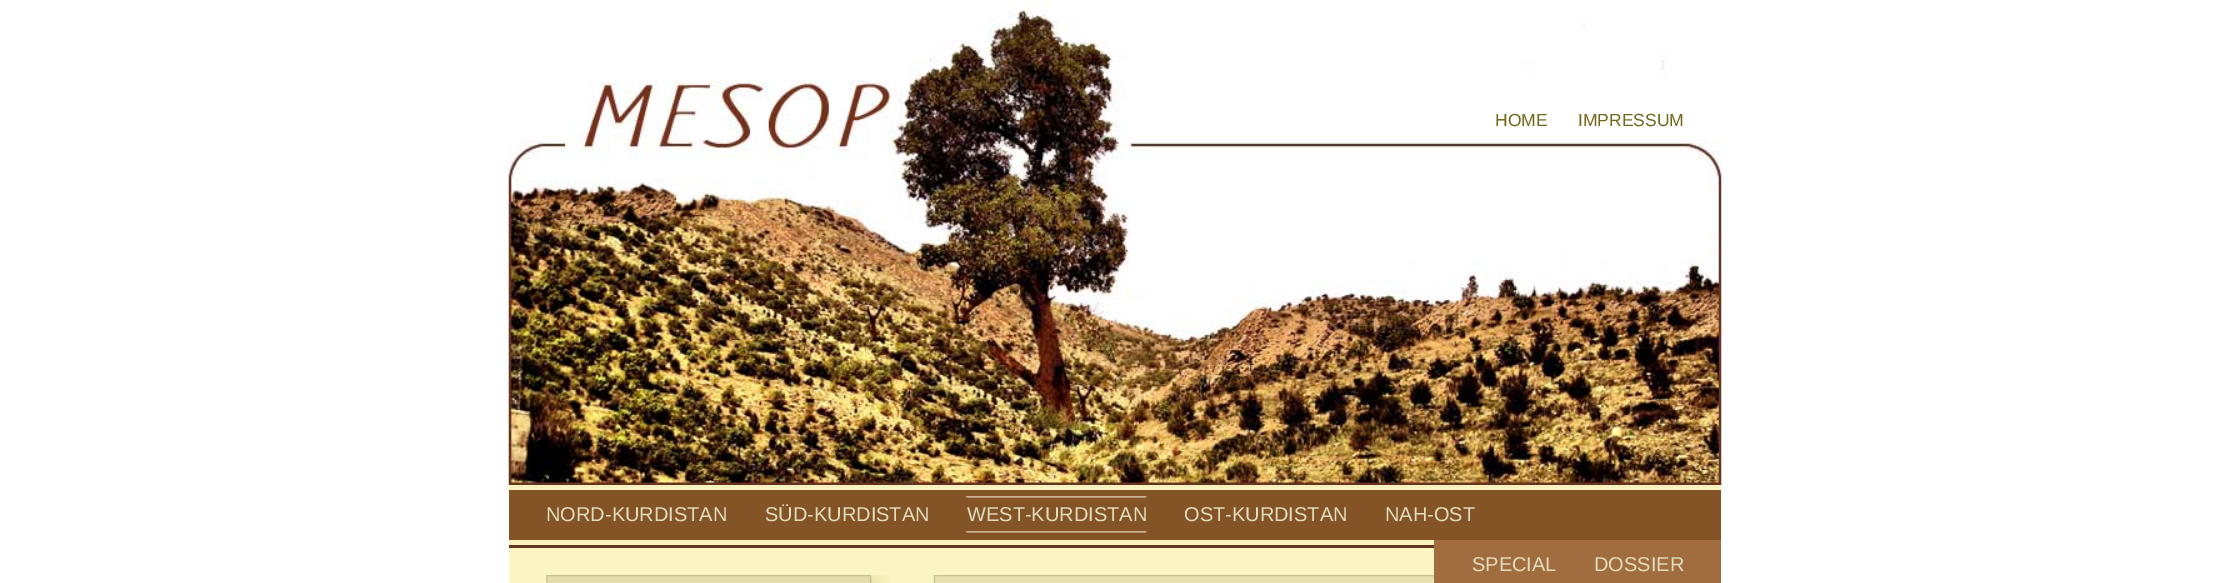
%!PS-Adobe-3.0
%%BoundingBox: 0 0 2229 583
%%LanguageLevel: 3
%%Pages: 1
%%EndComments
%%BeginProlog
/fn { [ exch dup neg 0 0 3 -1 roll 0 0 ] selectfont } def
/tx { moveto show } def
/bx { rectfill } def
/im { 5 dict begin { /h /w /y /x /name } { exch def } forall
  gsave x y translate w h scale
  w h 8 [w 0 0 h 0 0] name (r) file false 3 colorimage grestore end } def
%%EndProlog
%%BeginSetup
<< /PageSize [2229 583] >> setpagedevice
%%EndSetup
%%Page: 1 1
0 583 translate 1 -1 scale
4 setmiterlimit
1 setgray
0 0 2229 583 bx
0.969 0.949 0.741 setrgbcolor
509 485 1212 60 bx
(image0.raw) 508 0 1214 485 im
/LiberationSans-Regular 17.5 fn
0.455 0.4 0.106 setrgbcolor
(HOME) 1495 126 tx
(IMPRESSUM) 1578 126 tx
0.518 0.325 0.149 setrgbcolor
509 490 1212 50 bx
/LiberationSans-Regular 20 fn
0.882 0.871 0.749 setrgbcolor
(NORD-KURDISTAN) 546 521 tx
(SÜD-KURDISTAN) 765 521 tx
(image1.raw) 966 496 181 37 im
(WEST-KURDISTAN) 967 521 tx
(OST-KURDISTAN) 1184 521 tx
(NAH-OST) 1385 521 tx
0.631 0.427 0.243 setrgbcolor
1434 540 287 43 bx
0.882 0.871 0.749 setrgbcolor
(SPECIAL) 1472 571 tx
(DOSSIER) 1594 571 tx
0.98 0.961 0.761 setrgbcolor
509 548 925 35 bx
0.412 0.2 0.133 setrgbcolor
509 545 925 3 bx
(image2.raw) 546 575 343 8 im
(image3.raw) 546 575 2 8 im
(image4.raw) 933 575 501 8 im
showpage
%%EOF
